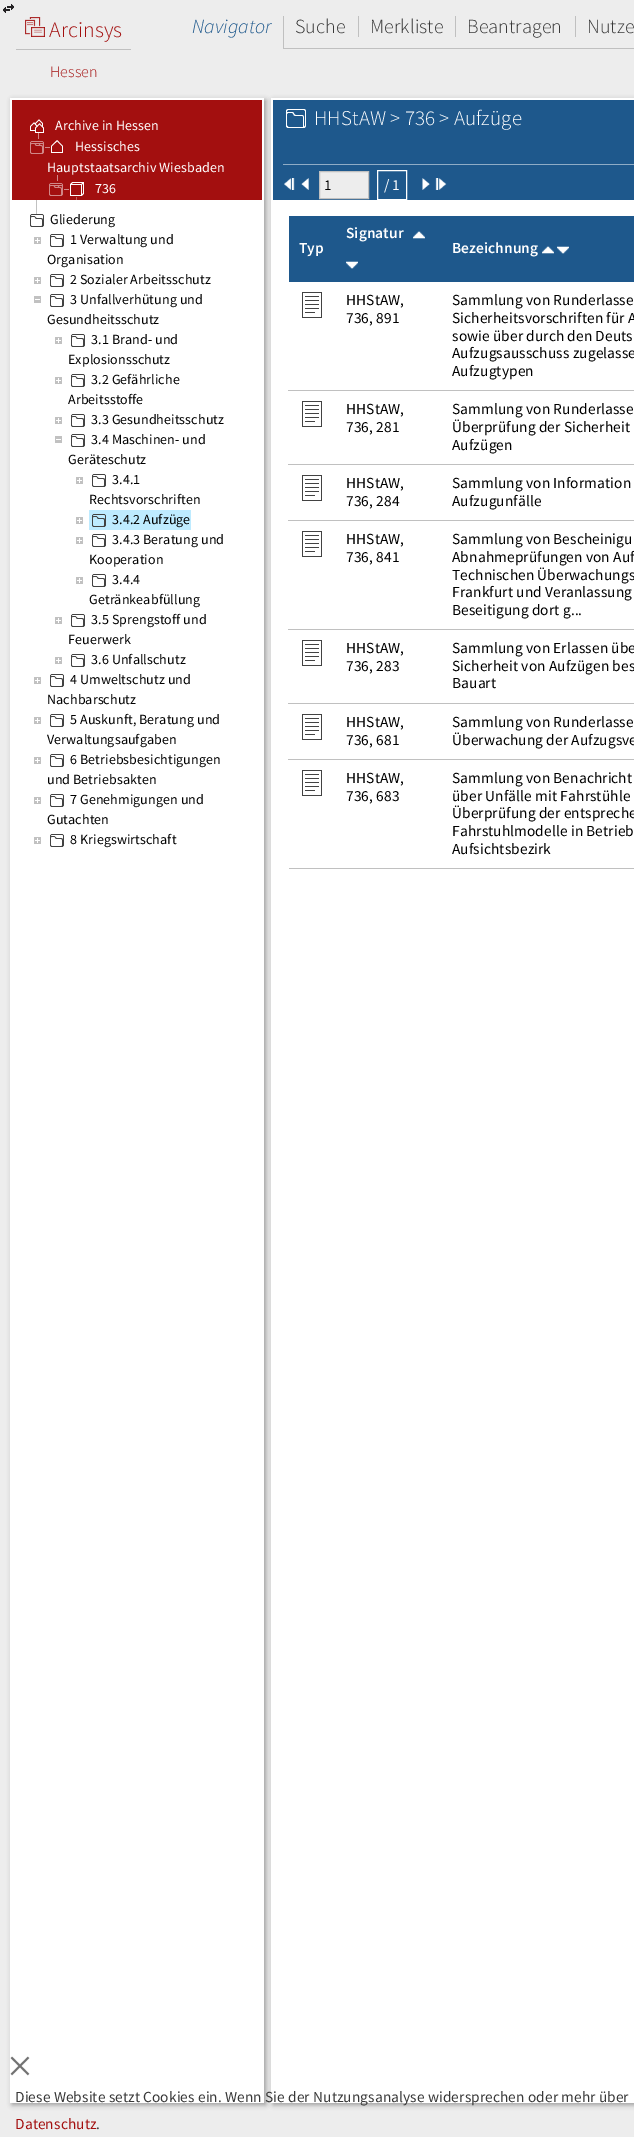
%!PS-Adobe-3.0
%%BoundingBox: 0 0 634 2137
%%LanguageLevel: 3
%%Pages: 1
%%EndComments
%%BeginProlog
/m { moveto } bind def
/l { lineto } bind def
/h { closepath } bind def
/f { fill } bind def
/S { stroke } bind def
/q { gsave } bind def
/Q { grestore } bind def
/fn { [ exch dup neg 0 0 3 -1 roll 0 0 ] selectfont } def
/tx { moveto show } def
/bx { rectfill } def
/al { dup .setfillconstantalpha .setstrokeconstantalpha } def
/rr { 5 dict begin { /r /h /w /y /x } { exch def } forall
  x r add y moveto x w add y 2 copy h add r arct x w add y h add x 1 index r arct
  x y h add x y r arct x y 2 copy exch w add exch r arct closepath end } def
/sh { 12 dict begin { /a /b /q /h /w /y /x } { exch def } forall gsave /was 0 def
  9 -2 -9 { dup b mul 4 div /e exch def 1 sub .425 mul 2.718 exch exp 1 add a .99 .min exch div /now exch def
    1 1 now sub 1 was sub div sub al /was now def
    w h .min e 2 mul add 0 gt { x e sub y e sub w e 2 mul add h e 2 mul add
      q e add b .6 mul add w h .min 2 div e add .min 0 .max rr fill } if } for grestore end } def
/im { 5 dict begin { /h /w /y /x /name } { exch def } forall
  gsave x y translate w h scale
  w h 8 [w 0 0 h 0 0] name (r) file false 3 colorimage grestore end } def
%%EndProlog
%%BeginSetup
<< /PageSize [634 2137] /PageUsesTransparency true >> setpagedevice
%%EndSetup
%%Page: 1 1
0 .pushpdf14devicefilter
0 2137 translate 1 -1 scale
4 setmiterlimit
0.929 setgray
0 0 634 2137 bx
(image0.raw) 3 4 11 9 im
(image1.raw) 25 17 20 20 im
/SourceSansPro-Light 22 fn
0.639 0.059 0.059 setrgbcolor
49 37 m 0.08 0 (Arcinsys) ashow
0.753 setgray
16 49 115 1 bx
/SourceSansPro-Light 16 fn
0.639 0.059 0.059 setrgbcolor
50 77 m 0.08 0 (Hessen) ashow
0.753 setgray
283 48 351 1 bx
/SourceSansPro-LightItalic 20 fn
0.118 0.345 0.549 setrgbcolor
192 33 m 0.08 0 (Navigator) ashow
0.753 setgray
283 16 1 32 bx
/SourceSansPro-Light 20 fn
0.224 setgray
295 33 m 0.08 0 (Suche) ashow
0.753 setgray
358 16 1 21 bx
0.224 setgray
370 33 m 0.08 0 (Merkliste) ashow
0.753 setgray
455 16 1 21 bx
0.224 setgray
467 33 m 0.08 0 (Beantragen) ashow
0.753 setgray
575 16 1 21 bx
0.224 setgray
587 33 m 0.08 0 (Nutze) ashow
0 setgray
12 100 254 2005 0 2.5 0.33 sh
1 setgray
10 98 254 2005 bx
0.639 0.059 0.059 setrgbcolor
12 100 250 100 bx
(image2.raw) 30 119 14 14 im
/SourceSansPro-Regular 14 fn
1 setgray
55 130 m 0.08 0 (Archive in Hessen) ashow
(image3.raw) 30 133 20 21 im
(image4.raw) 51 140 12 13 im
75 151 m 0.08 0 (Hessisches) ashow
47 172 m 0.08 0 (Hauptstaatsarchiv Wiesbaden) ashow
(image3.raw) 49 175 20 21 im
(image5.raw) 70 182 14 14 im
95 193 m 0.08 0 (736) ashow
(image6.raw) 76 197 1 3 im
0.757 setgray
36 200 1 14 bx
(image7.raw) 30 214 14 13 im
0 setgray
50 224 m 0.08 0 (Gliederung) ashow
(image8.raw) 34 237 7 7 im
(image7.raw) 50 234 14 13 im
70 244 m 0.08 0 (1 Verwaltung und) ashow
47 264 m 0.08 0 (Organisation) ashow
(image8.raw) 34 277 7 7 im
(image7.raw) 50 274 14 13 im
70 284 m 0.08 0 (2 Sozialer Arbeitsschutz) ashow
(image9.raw) 34 296 7 7 im
(image7.raw) 50 294 14 13 im
70 304 m 0.08 0 (3 Unfallverhütung und) ashow
47 324 m 0.08 0 (Gesundheitsschutz) ashow
(image8.raw) 55 337 7 7 im
(image7.raw) 71 334 14 13 im
91 344 m 0.08 0 (3.1 Brand- und) ashow
68 364 m 0.08 0 (Explosionsschutz) ashow
(image8.raw) 55 377 7 7 im
(image7.raw) 71 374 14 13 im
91 384 m 0.08 0 (3.2 Gefährliche) ashow
68 404 m 0.08 0 (Arbeitsstoffe) ashow
(image8.raw) 55 417 7 7 im
(image7.raw) 71 414 14 13 im
91 424 m 0.08 0 (3.3 Gesundheitsschutz) ashow
(image9.raw) 55 436 7 7 im
(image7.raw) 71 434 14 13 im
91 444 m 0.08 0 (3.4 Maschinen- und) ashow
68 464 m 0.08 0 (Geräteschutz) ashow
(image8.raw) 76 477 7 7 im
(image7.raw) 92 474 14 13 im
112 484 m 0.08 0 (3.4.1) ashow
89 504 m 0.08 0 (Rechtsvorschriften) ashow
(image8.raw) 76 517 7 7 im
0.745 0.922 1 setrgbcolor
89 510 102 20 bx
(image10.raw) 92 514 14 13 im
0 setgray
112 524 m 0.08 0 (3.4.2 Aufzüge) ashow
(image8.raw) 76 537 7 7 im
(image7.raw) 92 534 14 13 im
112 544 m 0.08 0 (3.4.3 Beratung und) ashow
89 564 m 0.08 0 (Kooperation) ashow
(image8.raw) 76 577 7 7 im
(image7.raw) 92 574 14 13 im
112 584 m 0.08 0 (3.4.4) ashow
89 604 m 0.08 0 (Getränkeabfüllung) ashow
(image8.raw) 55 617 7 7 im
(image7.raw) 71 614 14 13 im
91 624 m 0.08 0 (3.5 Sprengstoff und) ashow
68 644 m 0.08 0 (Feuerwerk) ashow
(image8.raw) 55 657 7 7 im
(image7.raw) 71 654 14 13 im
91 664 m 0.08 0 (3.6 Unfallschutz) ashow
(image8.raw) 34 677 7 7 im
(image7.raw) 50 674 14 13 im
70 684 m 0.08 0 (4 Umweltschutz und) ashow
47 704 m 0.08 0 (Nachbarschutz) ashow
(image8.raw) 34 717 7 7 im
(image7.raw) 50 714 14 13 im
70 724 m 0.08 0 (5 Auskunft, Beratung und) ashow
47 744 m 0.08 0 (Verwaltungsaufgaben) ashow
(image8.raw) 34 757 7 7 im
(image7.raw) 50 754 14 13 im
70 764 m 0.08 0 (6 Betriebsbesichtigungen) ashow
47 784 m 0.08 0 (und Betriebsakten) ashow
(image8.raw) 34 797 7 7 im
(image7.raw) 50 794 14 13 im
70 804 m 0.08 0 (7 Genehmigungen und) ashow
47 824 m 0.08 0 (Gutachten) ashow
(image8.raw) 34 837 7 7 im
(image7.raw) 50 834 14 13 im
70 844 m 0.08 0 (8 Kriegswirtschaft) ashow
273 100 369 2005 0 2.5 0.33 sh
1 setgray
271 98 363 2005 bx
0.118 0.345 0.549 setrgbcolor
273 100 361 100 bx
(image11.raw) 286 109 20 19 im
/SourceSansPro-Light 21 fn
1 setgray
314 125 m 0.08 0 (HHStAW > 736 > Aufzüge) ashow
0.561 0.675 0.776 setrgbcolor
283 164 351 1 bx
(image12.raw) 284 178 11 12 im
(image13.raw) 301 178 8 12 im
0.929 setgray
319.5 171.5 m 368.5 171.5 l 368.5 198.5 l 319.5 198.5 l h q f Q
0.753 setgray
S
/SourceSansPro-Regular 15 fn
0 setgray
(1) 324 190 tx
1 setgray
377.5 170.5 29 29 rectstroke
/SourceSansPro-Regular 15.4 fn
(/ 1) 384 190 tx
(image14.raw) 422 178 8 12 im
(image15.raw) 435 178 12 12 im
0.753 setgray
289 868 345 1 bx
0.118 0.345 0.549 setrgbcolor
289 216 345 66 bx
/SourceSansPro-SemiBold 15.4 fn
1 setgray
346 238 m 0.08 0 (Signatur) ashow
(image16.raw) 413 231 12 8 im
(image17.raw) 346 261 12 8 im
299 253 m 0.08 0 (Typ) ashow
452 253 m 0.08 0 (Bezeichnung) ashow
(image18.raw) 542 246 12 8 im
(image17.raw) 557 246 12 8 im
(image19.raw) 302 292 20 26 im
/SourceSansPro-Regular 15.4 fn
0 setgray
346 305 m 0.08 0 (HHStAW,) ashow
346 323 m 0.08 0 (736, 891) ashow
452 305 m 0.08 0 (Sammlung von Runderlasse) ashow
452 323 m 0.08 0 (Sicherheitsvorschriften für A) ashow
452 341 m 0.08 0 (sowie über durch den Deuts) ashow
452 358 m 0.08 0 (Aufzugsausschuss zugelasse) ashow
452 376 m 0.08 0 (Aufzugtypen) ashow
(image19.raw) 302 401 20 26 im
346 414 m 0.08 0 (HHStAW,) ashow
346 432 m 0.08 0 (736, 281) ashow
0.753 setgray
288 390 346 1 bx
0 setgray
452 414 m 0.08 0 (Sammlung von Runderlasse) ashow
452 432 m 0.08 0 (Überprüfung der Sicherheit) ashow
452 450 m 0.08 0 (Aufzügen) ashow
(image19.raw) 302 475 20 26 im
346 488 m 0.08 0 (HHStAW,) ashow
346 506 m 0.08 0 (736, 284) ashow
0.753 setgray
288 464 346 1 bx
0 setgray
452 488 m 0.08 0 (Sammlung von Information) ashow
452 506 m 0.08 0 (Aufzugunfälle) ashow
(image19.raw) 302 531 20 26 im
346 544 m 0.08 0 (HHStAW,) ashow
346 562 m 0.08 0 (736, 841) ashow
0.753 setgray
288 520 346 1 bx
0 setgray
452 544 m 0.08 0 (Sammlung von Bescheinigu) ashow
452 562 m 0.08 0 (Abnahmeprüfungen von Auf) ashow
452 580 m 0.08 0 (Technischen Überwachungs) ashow
452 597 m 0.08 0 (Frankfurt und Veranlassung) ashow
452 615 m 0.08 0 (Beseitigung dort g...) ashow
(image19.raw) 302 640 20 26 im
346 653 m 0.08 0 (HHStAW,) ashow
346 671 m 0.08 0 (736, 283) ashow
0.753 setgray
288 629 346 1 bx
0 setgray
452 653 m 0.08 0 (Sammlung von Erlassen übe) ashow
452 671 m 0.08 0 (Sicherheit von Aufzügen bes) ashow
452 688 m 0.08 0 (Bauart) ashow
(image19.raw) 302 714 20 26 im
346 727 m 0.08 0 (HHStAW,) ashow
346 745 m 0.08 0 (736, 681) ashow
0.753 setgray
288 703 346 1 bx
0 setgray
452 727 m 0.08 0 (Sammlung von Runderlasse) ashow
452 745 m 0.08 0 (Überwachung der Aufzugsve) ashow
(image19.raw) 302 770 20 26 im
346 783 m 0.08 0 (HHStAW,) ashow
346 801 m 0.08 0 (736, 683) ashow
0.753 setgray
288 759 346 1 bx
0 setgray
452 783 m 0.08 0 (Sammlung von Benachricht) ashow
452 801 m 0.08 0 (über Unfälle mit Fahrstühle) ashow
452 818 m 0.08 0 (Überprüfung der entspreche) ashow
452 836 m 0.08 0 (Fahrstuhlmodelle in Betrieb) ashow
452 854 m 0.08 0 (Aufsichtsbezirk) ashow
(image20.raw) 10 2056 20 20 im
0.224 setgray
15 2102 m 0.08 0 (Diese Website setzt Cookies ein. Wenn Sie der Nutzungsanalyse widersprechen oder mehr über) ashow
0.639 0.059 0.059 setrgbcolor
15 2129 m 0.08 0 (Datenschutz) ashow
0.224 setgray
96 2129 m 0.08 0 (.) ashow
.poppdf14devicefilter showpage
%%EOF
